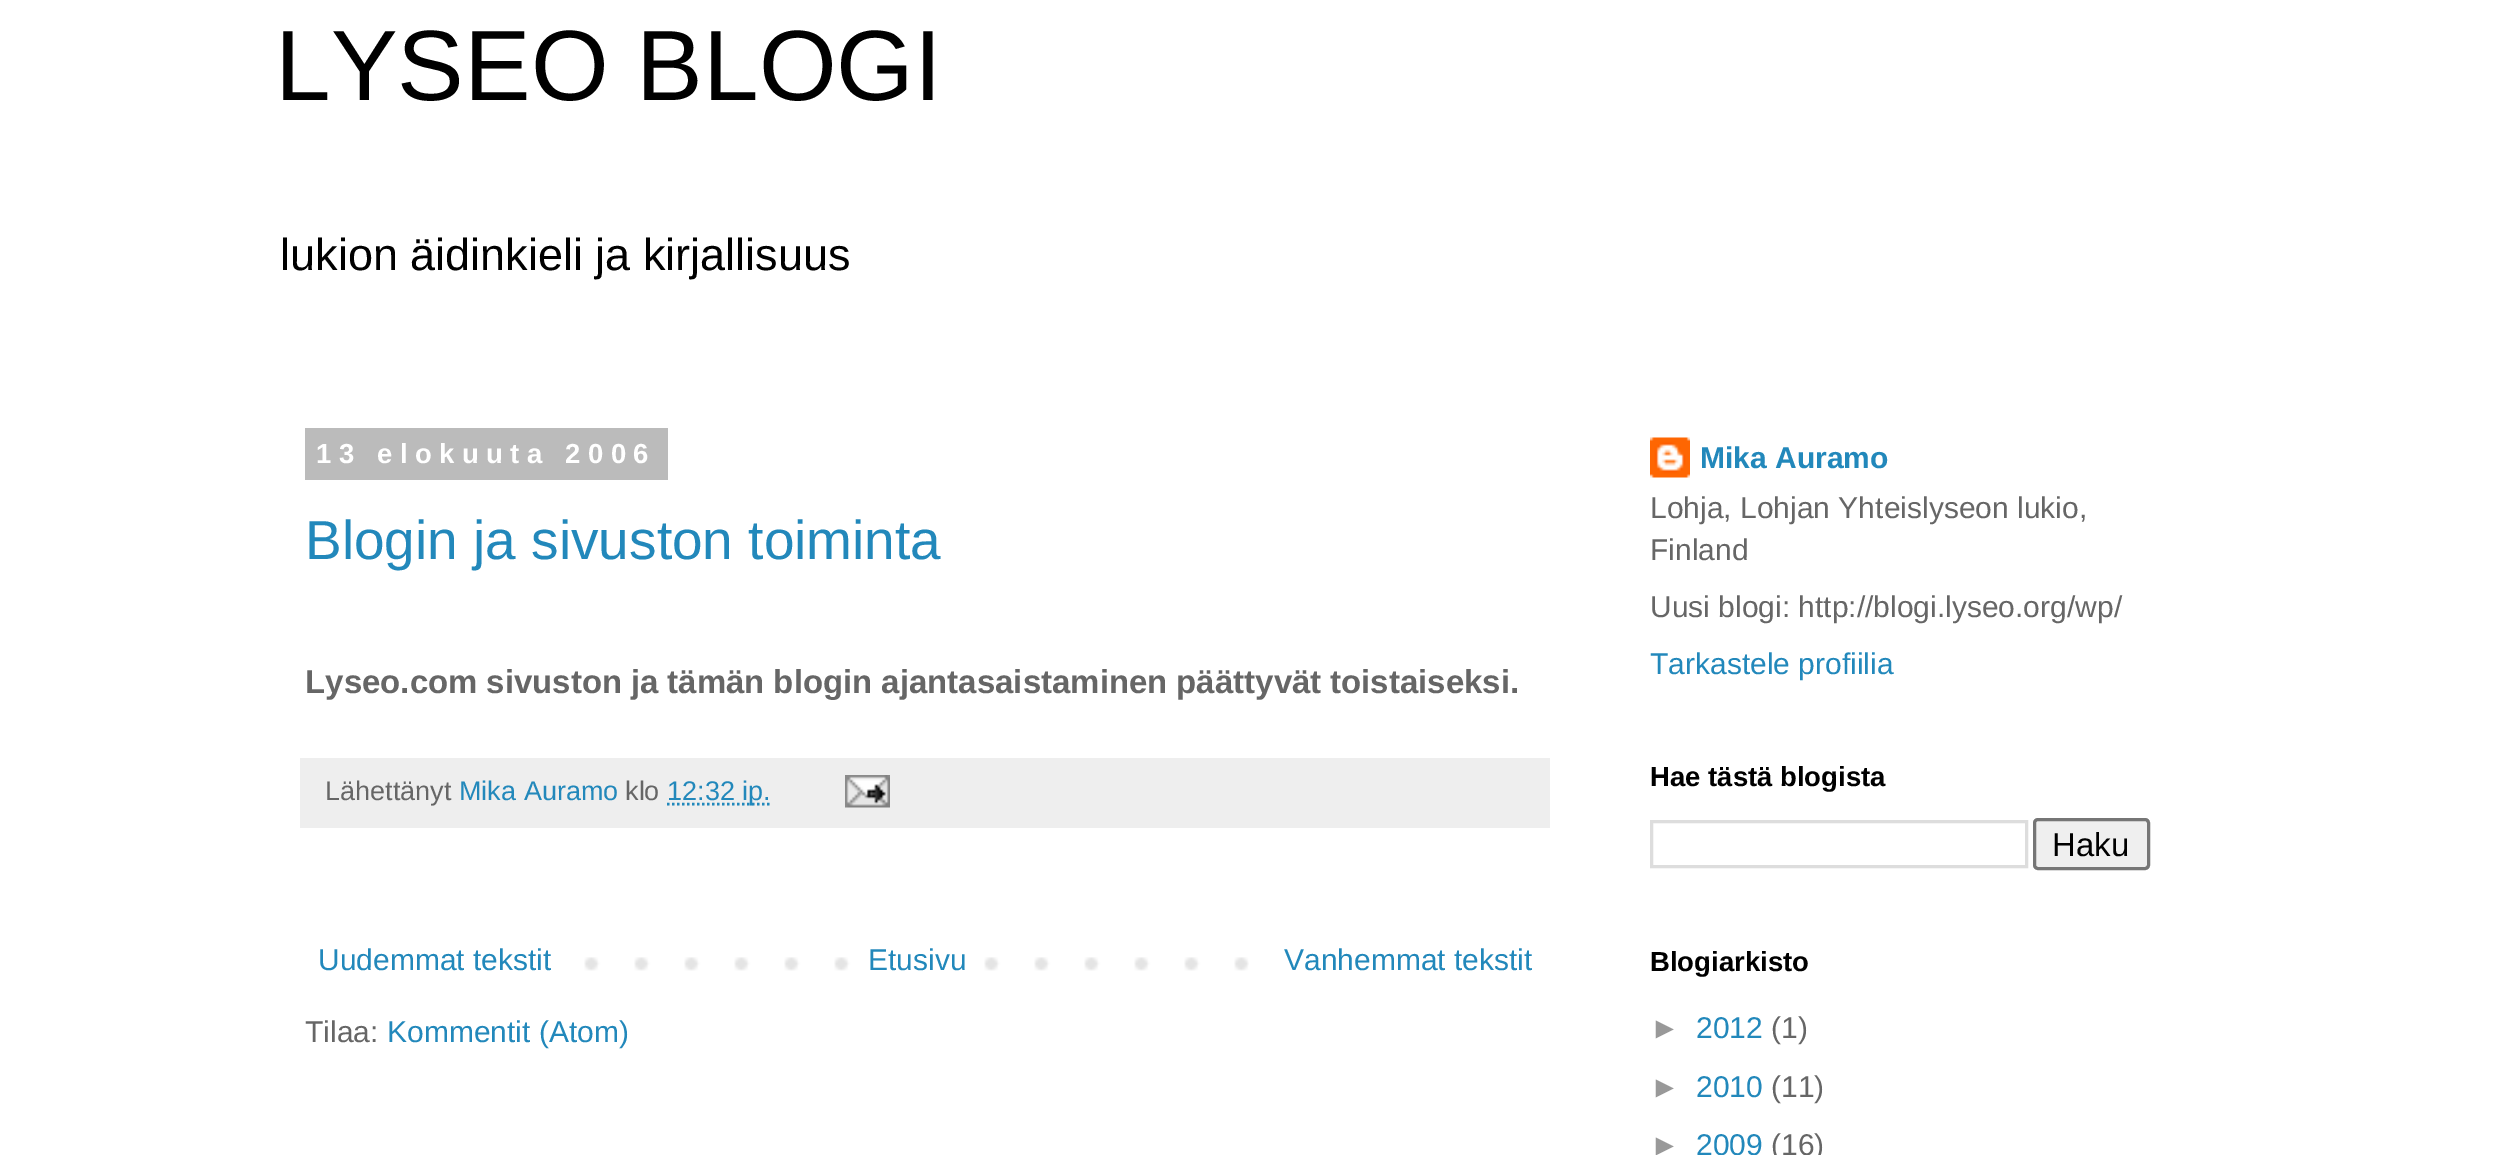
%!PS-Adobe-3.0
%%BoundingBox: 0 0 2500 1155
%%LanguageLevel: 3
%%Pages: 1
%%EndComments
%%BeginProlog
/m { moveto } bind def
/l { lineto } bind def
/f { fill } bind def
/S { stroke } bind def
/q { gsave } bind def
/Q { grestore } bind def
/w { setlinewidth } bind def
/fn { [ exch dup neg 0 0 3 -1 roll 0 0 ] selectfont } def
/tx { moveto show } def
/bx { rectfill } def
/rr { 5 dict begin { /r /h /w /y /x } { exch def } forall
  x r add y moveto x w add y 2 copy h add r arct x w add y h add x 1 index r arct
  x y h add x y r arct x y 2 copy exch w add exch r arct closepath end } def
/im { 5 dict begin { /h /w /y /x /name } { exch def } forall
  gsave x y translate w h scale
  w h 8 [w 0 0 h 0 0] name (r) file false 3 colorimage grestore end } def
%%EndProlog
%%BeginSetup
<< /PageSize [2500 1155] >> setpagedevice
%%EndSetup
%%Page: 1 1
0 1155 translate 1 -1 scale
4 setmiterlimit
1 setgray
0 0 2500 1155 bx
/LiberationSans-Regular 100 fn
0 setgray
(LYSEO BLOGI) 275 100 tx
/LiberationSans-Regular 45 fn
(lukion äidinkieli ja kirjallisuus) 280 270 tx
0.733 setgray
305 428 363 52 bx
/LiberationSans-Bold 27.5 fn
1 setgray
316 463 m 7.5 0 (13 elokuuta 2006) ashow
/LiberationSans-Regular 55 fn
0.133 0.533 0.733 setrgbcolor
(Blogin ja sivuston toiminta) 305 559 tx
/LiberationSans-Bold 33 fn
0.4 setgray
305 693 m -0.25 0 32 (Lyseo.com sivuston ja tämän blogin ajantasaistaminen päättyvät toistaiseksi.) widthshow
0.933 setgray
300 758 1250 70 bx
/LiberationSans-Regular 27 fn
0.4 setgray
(Lähettänyt) 325 800 tx
0.133 0.533 0.733 setrgbcolor
(Mika Auramo) 459 800 tx
0.4 setgray
(klo) 625 800 tx
0.133 0.533 0.733 setrgbcolor
2.5 w
[2.5 2.5] 0 setdash
667 804 m 770.5 804 l S
(12:32 ip.) 667 800 tx
(image0.raw) 845 775 45 33 im
(image1.raw) 584 957 665 14 im
/LiberationSans-Regular 30 fn
(Uudemmat tekstit) 318 970 tx
1 setgray
884 957 66 14 bx
0.133 0.533 0.733 setrgbcolor
(Etusivu) 868 970 tx
(Vanhemmat tekstit) 1284 970 tx
0.4 setgray
(Tilaa:) 305 1042 tx
0.133 0.533 0.733 setrgbcolor
(Kommentit \(Atom\)) 387 1042 tx
(image2.raw) 1650 437 40 41 im
/LiberationSans-Bold 30 fn
(Mika Auramo) 1700 468 tx
/LiberationSans-Regular 30 fn
0.4 setgray
(Lohja, Lohjan Yhteislyseon lukio,) 1650 518 tx
(Finland) 1650 560 tx
(Uusi blogi: http://blogi.lyseo.org/wp/) 1650 617 tx
0.133 0.533 0.733 setrgbcolor
(Tarkastele profiilia) 1650 674 tx
/LiberationSans-Bold 27.5 fn
0 setgray
(Hae tästä blogista) 1650 786 tx
0.867 setgray
3 w
[] 0 setdash
1651.5 821.5 375 45 rectstroke
0.937 setgray
2034.5 819.5 114 49 3.5 rr q f Q
0.463 setgray
S
/LiberationSans-Regular 33 fn
0 setgray
(Haku) 2052 856 tx
/LiberationSans-Bold 27.5 fn
(Blogiarkisto) 1650 971 tx
/LiberationSans-Regular 30 fn
0.6 setgray
(►) 1650 1038 tx
0.133 0.533 0.733 setrgbcolor
(2012) 1696 1038 tx
0.4 setgray
(\(1\)) 1771 1038 tx
0.6 setgray
(►) 1650 1097 tx
0.133 0.533 0.733 setrgbcolor
(2010) 1696 1097 tx
0.4 setgray
(\(11\)) 1771 1097 tx
0.6 setgray
(►) 1650 1155 tx
0.133 0.533 0.733 setrgbcolor
(2009) 1696 1155 tx
0.4 setgray
(\(16\)) 1771 1155 tx
showpage
%%EOF
